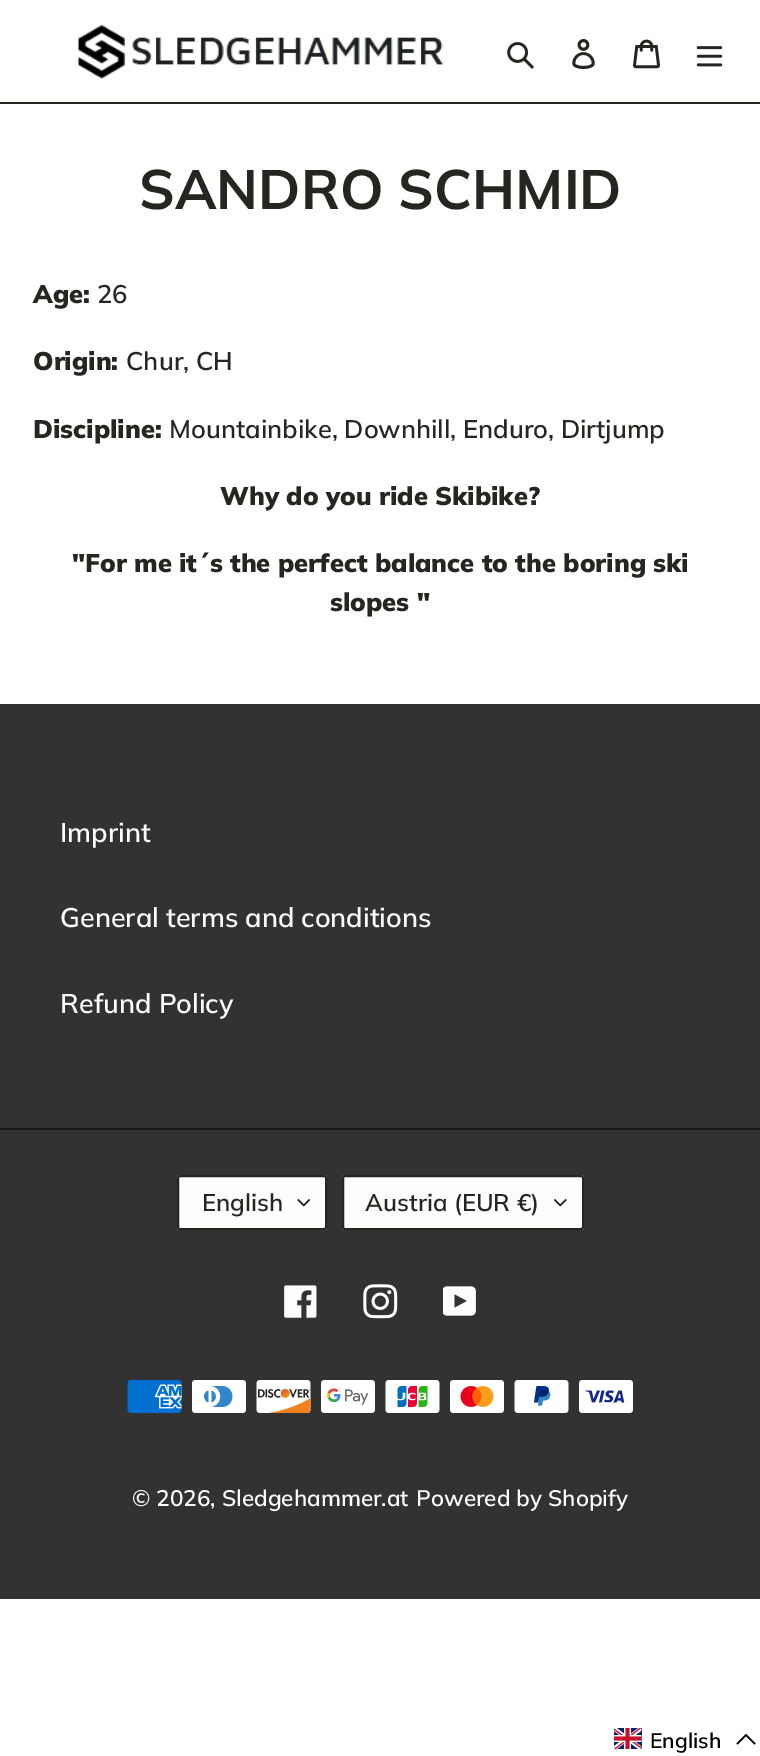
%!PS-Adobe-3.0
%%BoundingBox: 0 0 760 1756
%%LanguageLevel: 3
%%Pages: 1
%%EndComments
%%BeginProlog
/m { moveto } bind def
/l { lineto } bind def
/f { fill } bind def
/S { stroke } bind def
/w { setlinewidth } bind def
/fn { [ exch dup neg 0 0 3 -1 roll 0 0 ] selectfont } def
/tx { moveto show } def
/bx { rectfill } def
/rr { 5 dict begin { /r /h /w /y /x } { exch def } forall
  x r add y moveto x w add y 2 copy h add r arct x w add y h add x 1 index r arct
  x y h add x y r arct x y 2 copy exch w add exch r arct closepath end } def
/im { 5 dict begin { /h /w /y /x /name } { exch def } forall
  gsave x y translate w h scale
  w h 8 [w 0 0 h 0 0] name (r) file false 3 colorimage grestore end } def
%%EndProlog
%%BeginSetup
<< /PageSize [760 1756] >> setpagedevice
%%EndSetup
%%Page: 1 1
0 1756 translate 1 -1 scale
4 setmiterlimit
1 setgray
0 0 760 1756 bx
0.149 0.149 0.125 setrgbcolor
0 102 760 2 bx
(image0.raw) 78 24 366 55 im
(image1.raw) 507 42 27 27 im
(image2.raw) 572 39 23 30 im
(image3.raw) 633 39 27 30 im
(image4.raw) 696 46 27 21 im
/Muli-Bold 55.5 fn
(SANDRO SCHMID) 139 209 tx
/Muli-Black 25.5 fn
(Age:) 33 303 tx
/Muli-SemiBold 25.5 fn
(26) 97 303 tx
/Muli-Black 25.5 fn
(Origin:) 33 370 tx
/Muli-SemiBold 25.5 fn
(Chur, CH) 126 370 tx
/Muli-Black 25.5 fn
(Discipline:) 33 438 tx
/Muli-SemiBold 25.5 fn
(Mountainbike, Downhill, Enduro, Dirtjump) 169 438 tx
/Muli-Black 25.5 fn
(Why do you ride Skibike?) 220 505 tx
("For me it´s the perfect balance to the boring ski) 72 572 tx
(slopes ") 330 611 tx
0.2 0.196 0.196 setrgbcolor
0 704 760 895 bx
/Muli-SemiBold 27 fn
0.992 setgray
(Imprint) 60 842 tx
(General terms and conditions) 60 927 tx
(Refund Policy) 60 1013 tx
0.098 setgray
0 1128 760 2 bx
0.992 setgray
177 1175 150 55 3 rr f
(image5.raw) 297 1199 13 8 im
0.149 0.149 0.125 setrgbcolor
2 w
178 1176 148 53 2 rr S
/Muli-SemiBold 24 fn
(English) 202 1211 tx
0.992 setgray
342 1175 242 55 3 rr f
(image6.raw) 554 1199 13 8 im
0.149 0.149 0.125 setrgbcolor
343 1176 240 53 2 rr S
(Austria \(EUR €\)) 365 1211 tx
(image7.raw) 284 1285 33 33 im
(image8.raw) 363 1284 35 35 im
(image9.raw) 443 1286 33 30 im
(image10.raw) 127 1380 55 33 im
(image11.raw) 192 1380 54 33 im
(image12.raw) 256 1380 55 33 im
(image13.raw) 321 1380 54 33 im
(image14.raw) 385 1380 55 33 im
(image15.raw) 450 1380 54 33 im
(image16.raw) 514 1380 55 33 im
(image17.raw) 579 1380 54 33 im
/Muli-SemiBold 22.5 fn
0.992 setgray
(© 2026, Sledgehammer.at) 132 1506 tx
(Powered by Shopify) 416 1506 tx
(image18.raw) 614 1728 28 21 im
/Muli-SemiBold 21 fn
0 setgray
(English) 650 1748 tx
1.5 w
755 1744 m 746 1735 l 737 1744 l S
showpage
%%EOF
